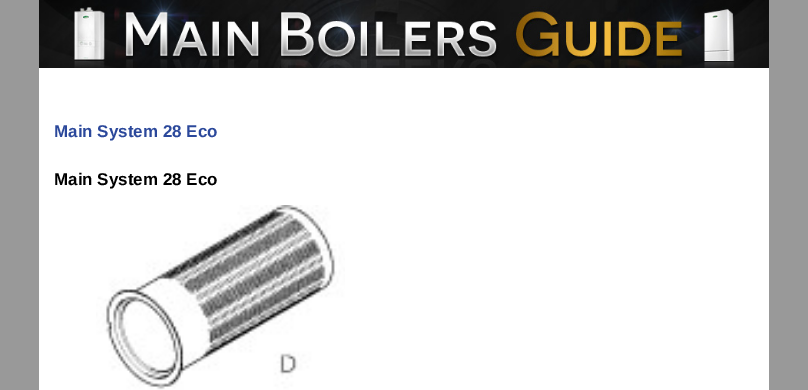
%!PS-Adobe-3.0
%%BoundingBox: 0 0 808 390
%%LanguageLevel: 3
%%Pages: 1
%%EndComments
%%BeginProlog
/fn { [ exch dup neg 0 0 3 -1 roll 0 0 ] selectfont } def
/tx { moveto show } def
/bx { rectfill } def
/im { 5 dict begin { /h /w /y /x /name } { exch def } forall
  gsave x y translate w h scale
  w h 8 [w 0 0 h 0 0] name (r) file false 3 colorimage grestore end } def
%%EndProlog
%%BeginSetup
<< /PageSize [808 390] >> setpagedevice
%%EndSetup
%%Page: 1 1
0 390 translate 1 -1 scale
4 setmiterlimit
0.6 setgray
0 0 808 390 bx
(image0.raw) 39 0 730 68 im
1 setgray
39 68 730 322 bx
/LiberationSans-Bold 17 fn
0.169 0.282 0.608 setrgbcolor
(Main System 28 Eco) 54 137 tx
0 setgray
(Main System 28 Eco) 54 185 tx
(image1.raw) 96 205 249 185 im
showpage
%%EOF
